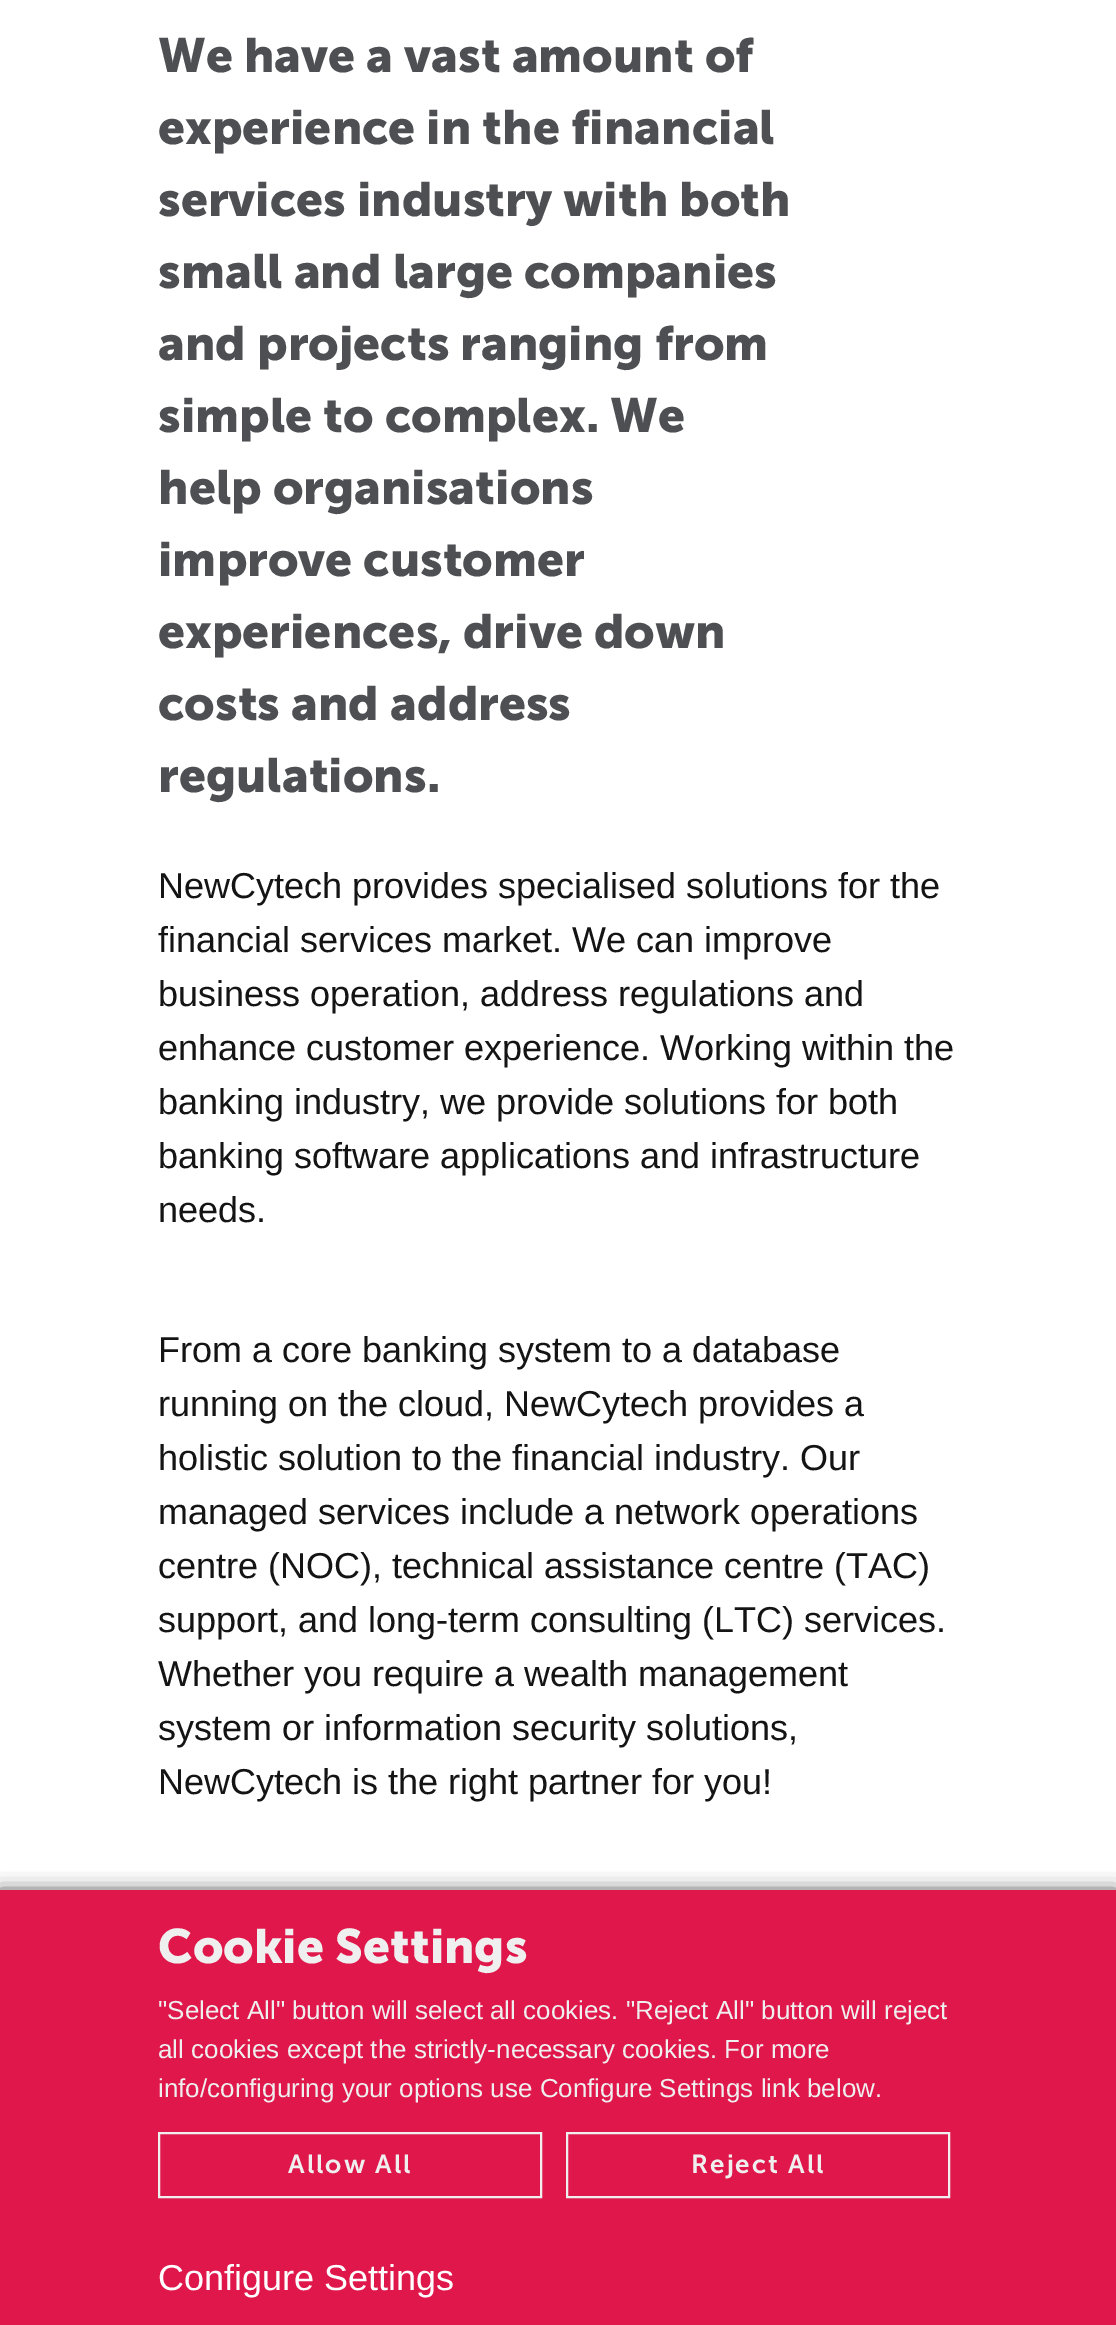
%!PS-Adobe-3.0
%%BoundingBox: 0 0 1116 2325
%%LanguageLevel: 3
%%Pages: 1
%%EndComments
%%BeginProlog
/m { moveto } bind def
/w { setlinewidth } bind def
/fn { [ exch dup neg 0 0 3 -1 roll 0 0 ] selectfont } def
/tx { moveto show } def
/bx { rectfill } def
/al { dup .setfillconstantalpha .setstrokeconstantalpha } def
/rr { 5 dict begin { /r /h /w /y /x } { exch def } forall
  x r add y moveto x w add y 2 copy h add r arct x w add y h add x 1 index r arct
  x y h add x y r arct x y 2 copy exch w add exch r arct closepath end } def
/sh { 12 dict begin { /a /b /q /h /w /y /x } { exch def } forall gsave /was 0 def
  9 -2 -9 { dup b mul 4 div /e exch def 1 sub .425 mul 2.718 exch exp 1 add a .99 .min exch div /now exch def
    1 1 now sub 1 was sub div sub al /was now def
    w h .min e 2 mul add 0 gt { x e sub y e sub w e 2 mul add h e 2 mul add
      q e add b .6 mul add w h .min 2 div e add .min 0 .max rr fill } if } for grestore end } def
%%EndProlog
%%BeginSetup
<< /PageSize [1116 2325] /PageUsesTransparency true >> setpagedevice
%%EndSetup
%%Page: 1 1
0 .pushpdf14devicefilter
0 2325 translate 1 -1 scale
4 setmiterlimit
1 setgray
0 0 1116 2325 bx
/MuseoSans-Bold 48 fn
0.302 0.31 0.322 setrgbcolor
(We have a vast amount of) 158 72 tx
(experience in the financial) 158 144 tx
(services industry with both) 158 216 tx
(small and large companies) 158 288 tx
(and projects ranging from) 158 360 tx
(simple to complex. We) 158 432 tx
(help organisations) 158 504 tx
(improve customer) 158 576 tx
(experiences, drive down) 158 648 tx
(costs and address) 158 720 tx
(regulations.) 158 792 tx
/LiberationSans-Regular 36 fn
0.078 setgray
(NewCytech provides specialised solutions for the) 158 898 tx
(financial services market. We can improve) 158 952 tx
(business operation, address regulations and) 158 1006 tx
(enhance customer experience. Working within the) 158 1060 tx
(banking industry, we provide solutions for both) 158 1114 tx
(banking software applications and infrastructure) 158 1168 tx
(needs.) 158 1222 tx
(From a core banking system to a database) 158 1362 tx
(running on the cloud, NewCytech provides a) 158 1416 tx
(holistic solution to the financial industry. Our) 158 1470 tx
(managed services include a network operations) 158 1524 tx
(centre \(NOC\), technical assistance centre \(TAC\)) 158 1578 tx
(support, and long-term consulting \(LTC\) services.) 158 1632 tx
(Whether you require a wealth management) 158 1686 tx
(system or information security solutions,) 158 1740 tx
(NewCytech is the right partner for you!) 158 1794 tx
0 setgray
0 1894 1116 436 0 10 1 sh
0.878 0.09 0.294 setrgbcolor
0 1890 1116 435 bx
/MuseoSans-Bold 48 fn
0.937 setgray
(Cookie Settings) 158 1963 tx
/LiberationSans-Regular 26 fn
("Select All" button will select all cookies. "Reject All" button will reject) 158 2019 tx
(all cookies except the strictly-necessary cookies. For more) 158 2058 tx
(info/configuring your options use Configure Settings link below.) 158 2097 tx
2 w
159 2133 382 64 rectstroke
/MuseoSans-SemiBold 26 fn
288 2173 m 2 0 (Allow All) ashow
567 2133 382 64 rectstroke
691 2173 m 2 0 (Reject All) ashow
/LiberationSans-Regular 36 fn
1 setgray
(Configure Settings) 158 2290 tx
.poppdf14devicefilter showpage
%%EOF
